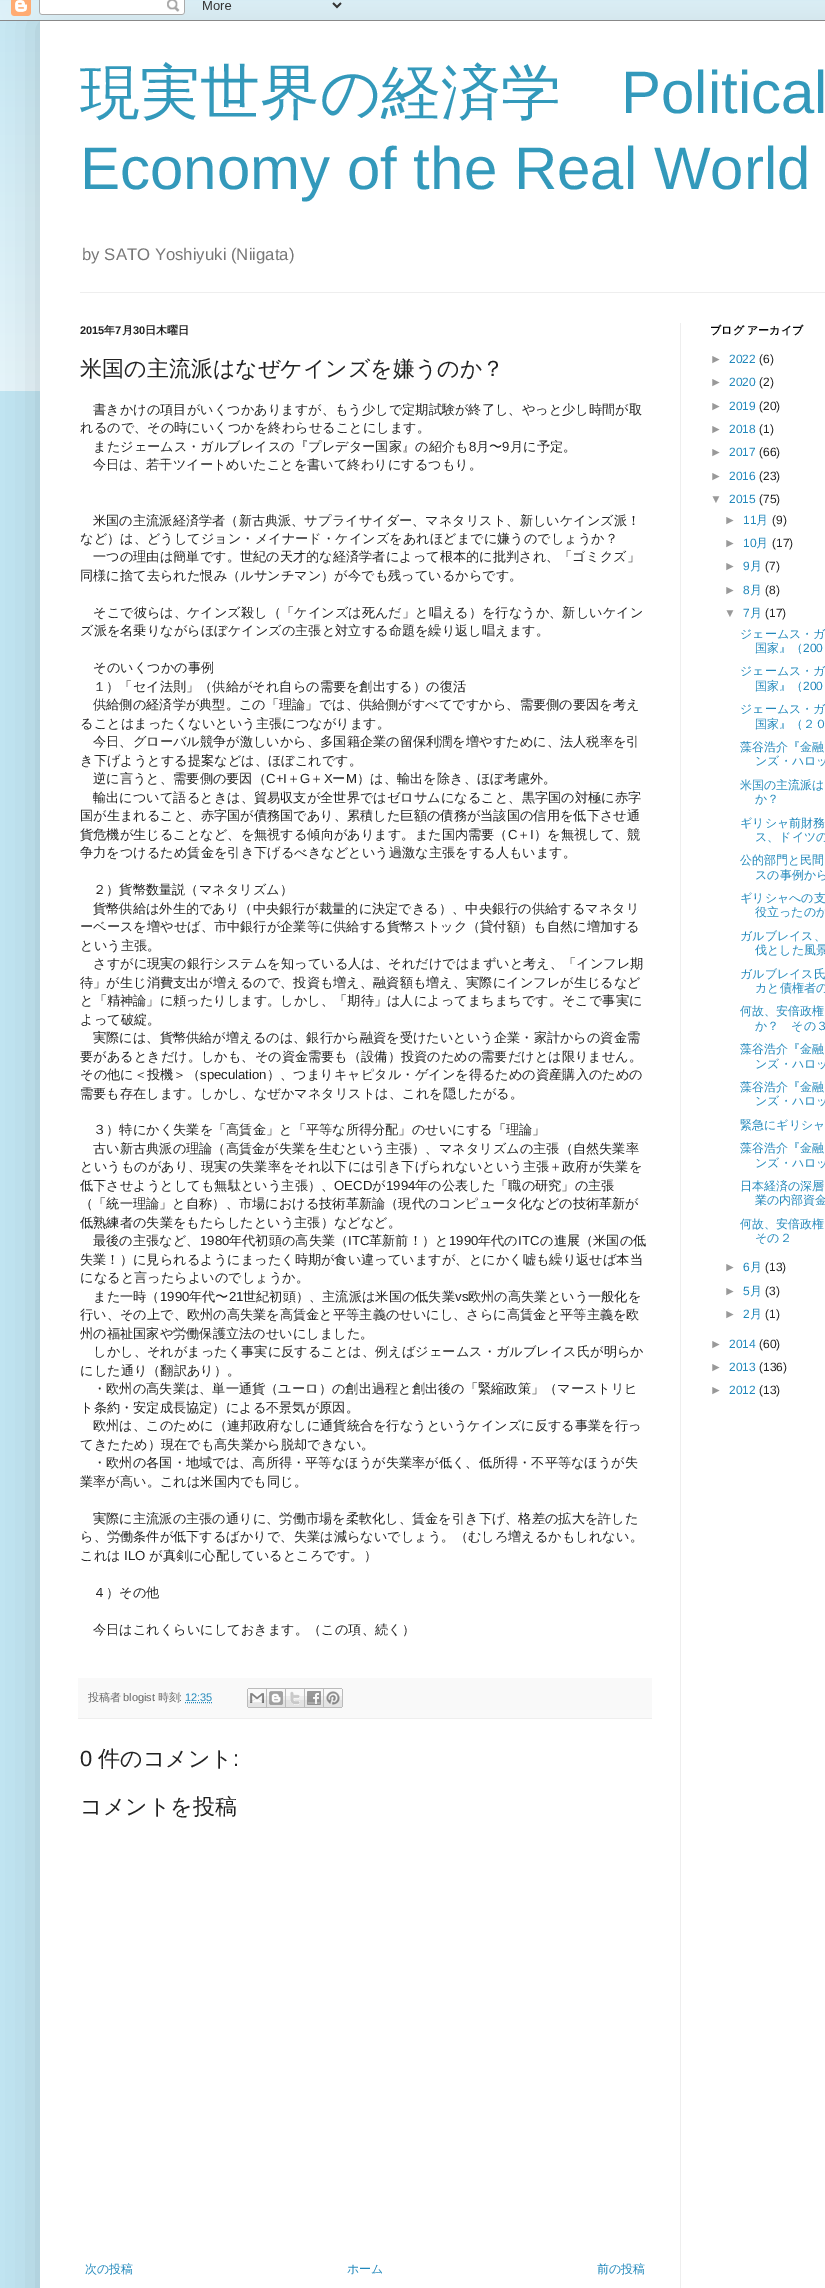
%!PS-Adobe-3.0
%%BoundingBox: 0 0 825 2288
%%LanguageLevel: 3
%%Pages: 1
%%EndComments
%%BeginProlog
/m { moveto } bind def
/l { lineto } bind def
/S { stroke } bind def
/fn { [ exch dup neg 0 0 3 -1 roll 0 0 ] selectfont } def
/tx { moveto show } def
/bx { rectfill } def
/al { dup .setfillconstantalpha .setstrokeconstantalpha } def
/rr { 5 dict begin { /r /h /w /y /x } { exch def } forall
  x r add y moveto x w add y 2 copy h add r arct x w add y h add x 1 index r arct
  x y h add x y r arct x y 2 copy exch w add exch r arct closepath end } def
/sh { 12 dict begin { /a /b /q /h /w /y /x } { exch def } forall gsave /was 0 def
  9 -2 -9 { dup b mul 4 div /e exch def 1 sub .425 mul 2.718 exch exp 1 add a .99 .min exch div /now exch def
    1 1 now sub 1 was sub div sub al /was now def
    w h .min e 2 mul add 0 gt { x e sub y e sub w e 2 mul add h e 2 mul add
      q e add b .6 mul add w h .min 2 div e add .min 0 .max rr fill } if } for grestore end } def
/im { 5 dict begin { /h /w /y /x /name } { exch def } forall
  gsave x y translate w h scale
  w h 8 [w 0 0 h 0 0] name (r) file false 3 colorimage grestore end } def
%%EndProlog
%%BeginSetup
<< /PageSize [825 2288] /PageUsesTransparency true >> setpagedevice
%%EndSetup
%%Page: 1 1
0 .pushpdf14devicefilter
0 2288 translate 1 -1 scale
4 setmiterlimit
0.757 0.898 0.949 setrgbcolor
0 0 825 2288 bx
(image1.raw) 0 1 825 390 im
0 setgray
40 21 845 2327 0 20 0.15 sh
(image0.raw) 0 0 825 21 im
1 setgray
40 21 785 2267 bx
/WenQuanYiZenHei-Medium 60 fn
0.2 0.6 0.733 setrgbcolor
(現実世界の経済学) 80 113 tx
/LiberationSans-Regular 60 fn
(Political) 621 113 tx
(Economy of the Real World) 80 189 tx
/LiberationSans-Regular 16.75 fn
0.467 setgray
(by SATO Yoshiyuki \(Niigata\)) 82 260 tx
0.933 setgray
80 292 745 1 bx
680 323 1 1965 bx
/LiberationSans-Bold 11 fn
0.133 setgray
(2015) 80 334 tx
/WenQuanYiZenHei-Bold 11 fn
(年) 104 334 tx
/LiberationSans-Bold 11 fn
(7) 115 334 tx
/WenQuanYiZenHei-Bold 11 fn
(月) 122 334 tx
/LiberationSans-Bold 11 fn
(30) 133 334 tx
/WenQuanYiZenHei-Bold 11 fn
(日木曜日) 145 334 tx
/WenQuanYiZenHei-Medium 22 fn
(米国の主流派はなぜケインズを嫌うのか？) 80 376 tx
/WenQuanYiZenHei-Medium 13.2 fn
(書きかけの項目がいくつかありますが、もう少しで定期試験が終了し、やっと少し時間が取) 93 414 tx
(れるので、その時にいくつかを終わらせることにします。) 80 432 tx
(またジェームス・ガルブレイスの『プレデター国家』の紹介も) 93 451 tx
/LiberationSans-Regular 13.2 fn
(8) 469 451 tx
/WenQuanYiZenHei-Medium 13.2 fn
(月〜) 476 451 tx
/LiberationSans-Regular 13.2 fn
(9) 502 451 tx
/WenQuanYiZenHei-Medium 13.2 fn
(月に予定。) 510 451 tx
(今日は、若干ツイートめいたことを書いて終わりにするつもり。) 93 469 tx
(米国の主流派経済学者（新古典派、サプライサイダー、マネタリスト、新しいケインズ派！) 93 525 tx
(など）は、どうしてジョン・メイナード・ケインズをあれほどまでに嫌うのでしょうか？) 80 543 tx
(一つの理由は簡単です。世紀の天才的な経済学者によって根本的に批判され、「ゴミクズ」) 93 561 tx
(同様に捨て去られた恨み（ルサンチマン）が今でも残っているからです。) 80 580 tx
(そこで彼らは、ケインズ殺し（「ケインズは死んだ」と唱える）を行なうか、新しいケイン) 93 617 tx
(ズ派を名乗りながらほぼケインズの主張と対立する命題を繰り返し唱えます。) 80 635 tx
(そのいくつかの事例) 93 672 tx
(１）「セイ法則」（供給がそれ自らの需要を創出する）の復活) 93 691 tx
(供給側の経済学が典型。この「理論」では、供給側がすべてですから、需要側の要因を考え) 93 709 tx
(ることはまったくないという主張につながります。) 80 728 tx
(今日、グローバル競争が激しいから、多国籍企業の留保利潤を増やすために、法人税率を引) 93 746 tx
(き下げようとする提案などは、ほぼこれです。) 80 765 tx
(逆に言うと、需要側の要因（) 93 783 tx
/LiberationSans-Regular 13.2 fn
(C+I) 266 783 tx
/WenQuanYiZenHei-Medium 13.2 fn
(＋) 287 783 tx
/LiberationSans-Regular 13.2 fn
(G) 300 783 tx
/WenQuanYiZenHei-Medium 13.2 fn
(＋) 310 783 tx
/LiberationSans-Regular 13.2 fn
(X) 324 783 tx
/WenQuanYiZenHei-Medium 13.2 fn
(ー) 332 783 tx
/LiberationSans-Regular 13.2 fn
(M) 346 783 tx
/WenQuanYiZenHei-Medium 13.2 fn
(）は、輸出を除き、ほぼ考慮外。) 357 783 tx
(輸出について語るときは、貿易収支が全世界ではゼロサムになること、黒字国の対極に赤字) 93 802 tx
(国が生まれること、赤字国が債務国であり、累積した巨額の債務が当該国の信用を低下させ通) 80 820 tx
(貨危機が生じることなど、を無視する傾向があります。また国内需要（) 80 839 tx
/LiberationSans-Regular 13.2 fn
(C) 508 839 tx
/WenQuanYiZenHei-Medium 13.2 fn
(＋ ）を無視して、競) 517 839 tx
/LiberationSans-Regular 13.2 fn
(I) 530 839 tx
/WenQuanYiZenHei-Medium 13.2 fn
(争力をつけるため賃金を引き下げるべきなどという過激な主張をする人もいます。) 80 857 tx
(２）貨幣数量説（マネタリズム）) 93 894 tx
(貨幣供給は外生的であり（中央銀行が裁量的に決定できる）、中央銀行の供給するマネタリ) 93 913 tx
(ーベースを増やせば、市中銀行が企業等に供給する貨幣ストック（貸付額）も自然に増加する) 80 931 tx
(という主張。) 80 950 tx
(さすがに現実の銀行システムを知っている人は、それだけではまずいと考え、「インフレ期) 93 968 tx
(待」が生じ消費支出が増えるので、投資も増え、融資額も増え、実際にインフレが生じるなど) 80 987 tx
(と「精神論」に頼ったりします。しかし、「期待」は人によってまちまちです。そこで事実に) 80 1005 tx
(よって破綻。) 80 1024 tx
(実際には、貨幣供給が増えるのは、銀行から融資を受けたいという企業・家計からの資金需) 93 1042 tx
(要があるときだけ。しかも、その資金需要も（設備）投資のための需要だけとは限りません。) 80 1061 tx
(その他に＜投機＞（) 80 1079 tx
/LiberationSans-Regular 13.2 fn
(speculation) 200 1079 tx
/WenQuanYiZenHei-Medium 13.2 fn
(）、つまりキャピタル・ゲインを得るための資産購入のための) 267 1079 tx
(需要も存在します。しかし、なぜかマネタリストは、これを隠したがる。) 80 1098 tx
(３）特にかく失業を「高賃金」と「平等な所得分配」のせいにする「理論」) 93 1134 tx
(古い新古典派の理論（高賃金が失業を生むという主張）、マネタリズムの主張（自然失業率) 93 1153 tx
(というものがあり、現実の失業率をそれ以下には引き下げられないという主張＋政府が失業を) 80 1171 tx
(低下させようとしても無駄という主張）、) 80 1190 tx
/LiberationSans-Regular 13.2 fn
(OECD) 334 1190 tx
/WenQuanYiZenHei-Medium 13.2 fn
(が) 372 1190 tx
/LiberationSans-Regular 13.2 fn
(1994) 386 1190 tx
/WenQuanYiZenHei-Medium 13.2 fn
(年の公表した「職の研究」の主張) 415 1190 tx
(（「統一理論」と自称）、市場における技術革新論（現代のコンピュータ化などの技術革新が) 80 1208 tx
(低熟練者の失業をもたらしたという主張）などなど。) 80 1227 tx
(最後の主張など、) 93 1245 tx
/LiberationSans-Regular 13.2 fn
(1980) 200 1245 tx
/WenQuanYiZenHei-Medium 13.2 fn
(年代初頭の高失業（) 229 1245 tx
/LiberationSans-Regular 13.2 fn
(ITC) 348 1245 tx
/WenQuanYiZenHei-Medium 13.2 fn
(革新前！）と) 369 1245 tx
/LiberationSans-Regular 13.2 fn
(1990) 449 1245 tx
/WenQuanYiZenHei-Medium 13.2 fn
(年代の) 478 1245 tx
/LiberationSans-Regular 13.2 fn
(ITC) 518 1245 tx
/WenQuanYiZenHei-Medium 13.2 fn
(の進展（米国の低) 540 1245 tx
(失業！）に見られるようにまったく時期が食い違っていますが、とにかく嘘も繰り返せば本当) 80 1264 tx
(になると言ったらよいのでしょうか。) 80 1282 tx
(また一時（) 93 1301 tx
/LiberationSans-Regular 13.2 fn
(1990) 160 1301 tx
/WenQuanYiZenHei-Medium 13.2 fn
(年代〜) 189 1301 tx
/LiberationSans-Regular 13.2 fn
(21) 229 1301 tx
/WenQuanYiZenHei-Medium 13.2 fn
(世紀初頭）、主流派は米国の低失業) 243 1301 tx
/LiberationSans-Regular 13.2 fn
(vs) 455 1301 tx
/WenQuanYiZenHei-Medium 13.2 fn
(欧州の高失業という一般化を) 468 1301 tx
(行い、その上で、欧州の高失業を高賃金と平等主義のせいにし、さらに高賃金と平等主義を欧) 80 1319 tx
(州の福祉国家や労働保護立法のせいにしました。) 80 1338 tx
(しかし、それがまったく事実に反することは、例えばジェームス・ガルブレイス氏が明らか) 93 1356 tx
(にした通り（翻訳あり）。) 80 1375 tx
(・欧州の高失業は、単一通貨（ユーロ）の創出過程と創出後の「緊縮政策」（マーストリヒ) 93 1393 tx
(ト条約・安定成長協定）による不景気が原因。) 80 1412 tx
(欧州は、このために（連邦政府なしに通貨統合を行なうというケインズに反する事業を行っ) 93 1430 tx
(てきたため）現在でも高失業から脱却できない。) 80 1449 tx
(・欧州の各国・地域では、高所得・平等なほうが失業率が低く、低所得・不平等なほうが失) 93 1467 tx
(業率が高い。これは米国内でも同じ。) 80 1486 tx
(実際に主流派の主張の通りに、労働市場を柔軟化し、賃金を引き下げ、格差の拡大を許した) 93 1523 tx
(ら、労働条件が低下するばかりで、失業は減らないでしょう。（むしろ増えるかもしれない。) 80 1541 tx
(これは) 80 1560 tx
/LiberationSans-Regular 13.2 fn
(ILO) 124 1560 tx
/WenQuanYiZenHei-Medium 13.2 fn
(が真剣に心配しているところです。）) 149 1560 tx
(４）その他) 93 1597 tx
(今日はこれくらいにしておきます。（この項、続く）) 93 1634 tx
0.976 setgray
78 1678 574 40 bx
0.933 setgray
78 1718 574 1 bx
/WenQuanYiZenHei-Medium 11 fn
0.4 setgray
(投稿者) 88 1701 tx
/LiberationSans-Regular 11 fn
(blogist) 123 1701 tx
/WenQuanYiZenHei-Medium 11 fn
(時刻) 158 1701 tx
/LiberationSans-Regular 11 fn
(:) 179 1701 tx
0.133 0.533 0.733 setrgbcolor
(12:35) 185 1701 tx
[1 1] 0 setdash
185 1702.5 m 212 1702.5 l S
(image2.raw) 247 1688 20 20 im
(image3.raw) 267 1688 19 20 im
(image4.raw) 286 1688 19 20 im
(image5.raw) 305 1688 19 20 im
(image6.raw) 324 1688 19 20 im
/LiberationSans-Regular 22 fn
0.133 setgray
(0) 80 1766 tx
/WenQuanYiZenHei-Medium 22 fn
(件のコメント) 98 1766 tx
/LiberationSans-Regular 22 fn
(:) 233 1766 tx
/WenQuanYiZenHei-Medium 22 fn
(コメントを投稿) 80 1814 tx
/WenQuanYiZenHei-Medium 12 fn
0.133 0.533 0.733 setrgbcolor
(次の投稿) 85 2273 tx
(ホーム) 347 2273 tx
(前の投稿) 597 2273 tx
/WenQuanYiZenHei-Bold 11 fn
0 setgray
(ブログ アーカイブ) 710 334 tx
/LiberationSans-Regular 12 fn
0.6 setgray
(►) 710 363 tx
0.133 0.533 0.733 setrgbcolor
(2022) 729 363 tx
0.133 setgray
(\(6\)) 759 363 tx
0.6 setgray
(►) 710 386 tx
0.133 0.533 0.733 setrgbcolor
(2020) 729 386 tx
0.133 setgray
(\(2\)) 759 386 tx
0.6 setgray
(►) 710 410 tx
0.133 0.533 0.733 setrgbcolor
(2019) 729 410 tx
0.133 setgray
(\(20\)) 759 410 tx
0.6 setgray
(►) 710 433 tx
0.133 0.533 0.733 setrgbcolor
(2018) 729 433 tx
0.133 setgray
(\(1\)) 759 433 tx
0.6 setgray
(►) 710 456 tx
0.133 0.533 0.733 setrgbcolor
(2017) 729 456 tx
0.133 setgray
(\(66\)) 759 456 tx
0.6 setgray
(►) 710 480 tx
0.133 0.533 0.733 setrgbcolor
(2016) 729 480 tx
0.133 setgray
(\(23\)) 759 480 tx
0.6 setgray
(▼) 710 503 tx
0.133 0.533 0.733 setrgbcolor
(2015) 729 503 tx
0.133 setgray
(\(75\)) 759 503 tx
0.6 setgray
(►) 724 524 tx
0.133 0.533 0.733 setrgbcolor
(11) 743 524 tx
/WenQuanYiZenHei-Medium 12 fn
(月) 756 524 tx
/LiberationSans-Regular 12 fn
0.133 setgray
(\(9\)) 772 524 tx
0.6 setgray
(►) 724 547 tx
0.133 0.533 0.733 setrgbcolor
(10) 743 547 tx
/WenQuanYiZenHei-Medium 12 fn
(月) 756 547 tx
/LiberationSans-Regular 12 fn
0.133 setgray
(\(17\)) 772 547 tx
0.6 setgray
(►) 724 570 tx
0.133 0.533 0.733 setrgbcolor
(9) 743 570 tx
/WenQuanYiZenHei-Medium 12 fn
(月) 750 570 tx
/LiberationSans-Regular 12 fn
0.133 setgray
(\(7\)) 765 570 tx
0.6 setgray
(►) 724 594 tx
0.133 0.533 0.733 setrgbcolor
(8) 743 594 tx
/WenQuanYiZenHei-Medium 12 fn
(月) 750 594 tx
/LiberationSans-Regular 12 fn
0.133 setgray
(\(8\)) 765 594 tx
0.6 setgray
(▼) 724 617 tx
0.133 0.533 0.733 setrgbcolor
(7) 743 617 tx
/WenQuanYiZenHei-Medium 12 fn
(月) 750 617 tx
/LiberationSans-Regular 12 fn
0.133 setgray
(\(17\)) 765 617 tx
/WenQuanYiZenHei-Medium 12 fn
0.133 0.533 0.733 setrgbcolor
(ジェームス・ガ) 740 638 tx
(国家』（) 755 652 tx
/LiberationSans-Regular 12 fn
(200) 803 652 tx
/WenQuanYiZenHei-Medium 12 fn
(ジェームス・ガ) 740 675 tx
(国家』（) 755 690 tx
/LiberationSans-Regular 12 fn
(200) 803 690 tx
/WenQuanYiZenHei-Medium 12 fn
(ジェームス・ガ) 740 713 tx
(国家』（２０) 755 728 tx
(藻谷浩介『金融) 740 751 tx
(ンズ・ハロッ) 755 765 tx
(米国の主流派は) 740 789 tx
(か？) 755 803 tx
(ギリシャ前財務) 740 827 tx
(ス、ドイツの) 755 841 tx
(公的部門と民間) 740 864 tx
(スの事例から) 755 879 tx
(ギリシャへの支) 740 902 tx
(役立ったのか) 755 916 tx
(ガルブレイス、) 740 940 tx
(伐とした風景) 755 954 tx
(ガルブレイス氏) 740 978 tx
(カと債権者の) 755 992 tx
(何故、安倍政権) 740 1015 tx
(か？　その３) 755 1030 tx
(藻谷浩介『金融) 740 1053 tx
(ンズ・ハロッ) 755 1068 tx
(藻谷浩介『金融) 740 1091 tx
(ンズ・ハロッ) 755 1105 tx
(緊急にギリシャ) 740 1129 tx
(藻谷浩介『金融) 740 1152 tx
(ンズ・ハロッ) 755 1167 tx
(日本経済の深層) 740 1190 tx
(業の内部資金) 755 1204 tx
(何故、安倍政権) 740 1228 tx
(その２) 755 1242 tx
/LiberationSans-Regular 12 fn
0.6 setgray
(►) 724 1271 tx
0.133 0.533 0.733 setrgbcolor
(6) 743 1271 tx
/WenQuanYiZenHei-Medium 12 fn
(月) 750 1271 tx
/LiberationSans-Regular 12 fn
0.133 setgray
(\(13\)) 765 1271 tx
0.6 setgray
(►) 724 1295 tx
0.133 0.533 0.733 setrgbcolor
(5) 743 1295 tx
/WenQuanYiZenHei-Medium 12 fn
(月) 750 1295 tx
/LiberationSans-Regular 12 fn
0.133 setgray
(\(3\)) 765 1295 tx
0.6 setgray
(►) 724 1318 tx
0.133 0.533 0.733 setrgbcolor
(2) 743 1318 tx
/WenQuanYiZenHei-Medium 12 fn
(月) 750 1318 tx
/LiberationSans-Regular 12 fn
0.133 setgray
(\(1\)) 765 1318 tx
0.6 setgray
(►) 710 1348 tx
0.133 0.533 0.733 setrgbcolor
(2014) 729 1348 tx
0.133 setgray
(\(60\)) 759 1348 tx
0.6 setgray
(►) 710 1371 tx
0.133 0.533 0.733 setrgbcolor
(2013) 729 1371 tx
0.133 setgray
(\(136\)) 759 1371 tx
0.6 setgray
(►) 710 1394 tx
0.133 0.533 0.733 setrgbcolor
(2012) 729 1394 tx
0.133 setgray
(\(13\)) 759 1394 tx
.poppdf14devicefilter showpage
%%EOF
